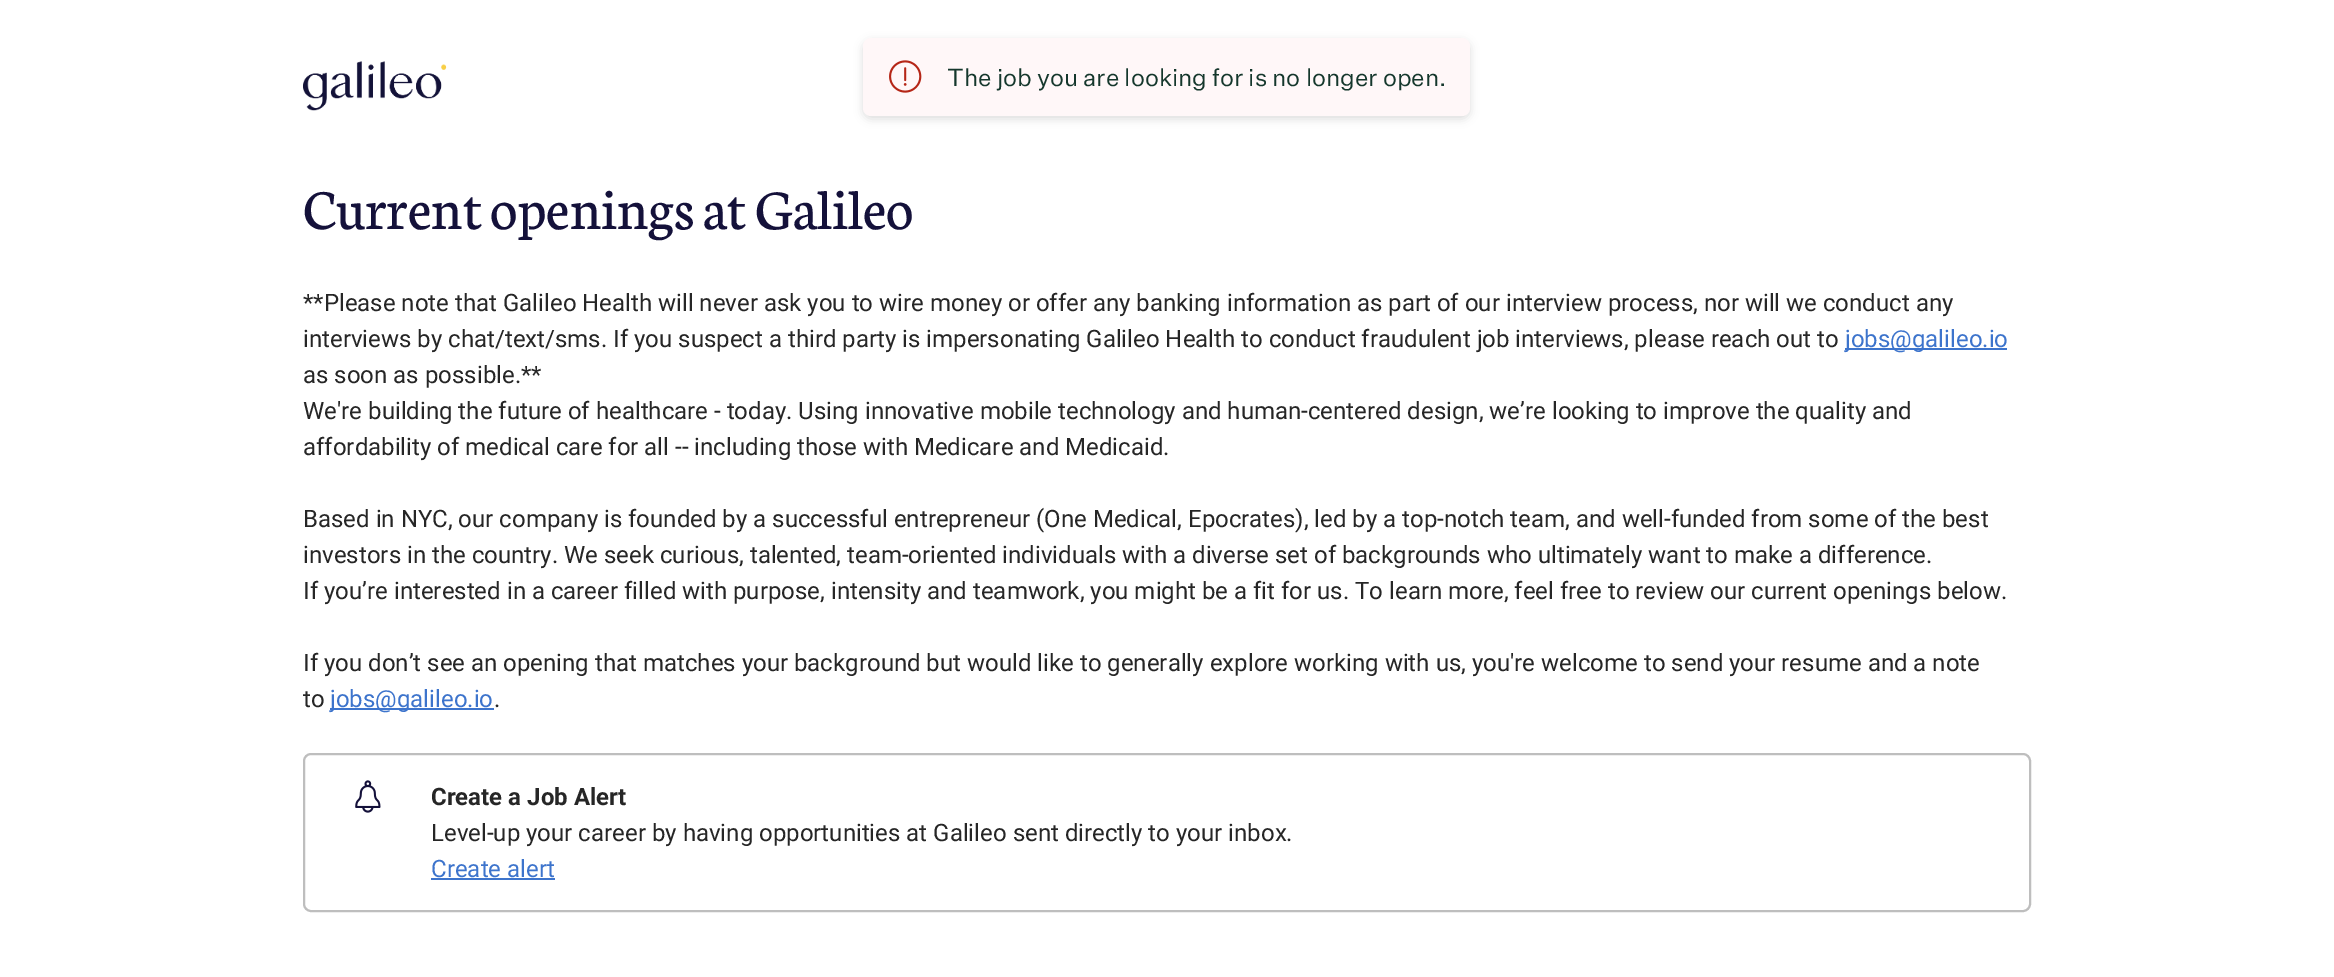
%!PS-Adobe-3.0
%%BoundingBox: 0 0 2334 977
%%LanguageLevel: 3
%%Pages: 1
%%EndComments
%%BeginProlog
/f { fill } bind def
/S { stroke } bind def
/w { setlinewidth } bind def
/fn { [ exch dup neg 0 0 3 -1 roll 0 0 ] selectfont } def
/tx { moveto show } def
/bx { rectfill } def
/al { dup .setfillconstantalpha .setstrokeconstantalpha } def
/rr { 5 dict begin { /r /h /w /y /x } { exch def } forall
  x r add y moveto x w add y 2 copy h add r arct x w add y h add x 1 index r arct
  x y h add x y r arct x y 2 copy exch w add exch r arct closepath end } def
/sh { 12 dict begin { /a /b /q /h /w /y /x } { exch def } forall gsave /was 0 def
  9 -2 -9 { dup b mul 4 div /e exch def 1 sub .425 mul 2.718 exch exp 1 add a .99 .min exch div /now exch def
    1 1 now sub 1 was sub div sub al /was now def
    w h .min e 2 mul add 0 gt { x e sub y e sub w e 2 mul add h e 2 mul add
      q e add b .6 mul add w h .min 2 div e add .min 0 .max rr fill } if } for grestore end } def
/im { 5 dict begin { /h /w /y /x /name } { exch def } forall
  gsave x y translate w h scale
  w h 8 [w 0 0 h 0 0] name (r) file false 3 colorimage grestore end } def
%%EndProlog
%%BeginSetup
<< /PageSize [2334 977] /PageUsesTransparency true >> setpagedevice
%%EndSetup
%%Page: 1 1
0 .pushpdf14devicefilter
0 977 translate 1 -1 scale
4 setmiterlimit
1 setgray
0 0 2334 977 bx
0 setgray
863 41 607 78 8 4.5 0.13 sh
1 0.969 0.973 setrgbcolor
863 38 607 78 8 rr f
(image0.raw) 889 60 33 33 im
/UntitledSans-Regular 24 fn
0.082 0.216 0.173 setrgbcolor
(The job you are looking for is no longer open.) 947 86 tx
(image1.raw) 303 61 144 50 im
/Neuton-Regular 60 fn
0.078 0.067 0.227 setrgbcolor
(Current openings at Galileo) 303 229 tx
/Roboto-Regular 24 fn
0.149 setgray
(**Please note that Galileo Health will never ask you to wire money or offer any banking information as part of our interview process, nor will we conduct any) 303 311 tx
(interviews by chat/text/sms. If you suspect a third party is impersonating Galileo Health to conduct fraudulent job interviews, please reach out to) 303 347 tx
0.239 0.455 0.8 setrgbcolor
1845 348 162 2 bx
(jobs@galileo.io) 1845 347 tx
0.149 setgray
(as soon as possible.**) 303 383 tx
(We're building the future of healthcare - today. Using innovative mobile technology and human-centered design, we’re looking to improve the quality and) 303 419 tx
(affordability of medical care for all -- including those with Medicare and Medicaid.) 303 455 tx
(Based in NYC, our company is founded by a successful entrepreneur \(One Medical, Epocrates\), led by a top-notch team, and well-funded from some of the best) 303 527 tx
(investors in the country. We seek curious, talented, team-oriented individuals with a diverse set of backgrounds who ultimately want to make a difference.) 303 563 tx
(If you’re interested in a career filled with purpose, intensity and teamwork, you might be a fit for us. To learn more, feel free to review our current openings below.) 303 599 tx
(If you don’t see an opening that matches your background but would like to generally explore working with us, you're welcome to send your resume and a note) 303 671 tx
(to) 303 707 tx
0.239 0.455 0.8 setrgbcolor
330 708 164 2 bx
(jobs@galileo.io) 330 707 tx
0.149 setgray
(.) 494 707 tx
0.745 setgray
2 w
304 754 1726 157 7 rr S
(image2.raw) 355 780 26 33 im
/Roboto-Bold 24 fn
0.149 setgray
(Create a Job Alert) 431 805 tx
/Roboto-Regular 24 fn
(Level-up your career by having opportunities at Galileo sent directly to your inbox.) 431 841 tx
0.239 0.455 0.8 setrgbcolor
(Create alert) 431 877 tx
431 878 124 2 bx
.poppdf14devicefilter showpage
%%EOF
